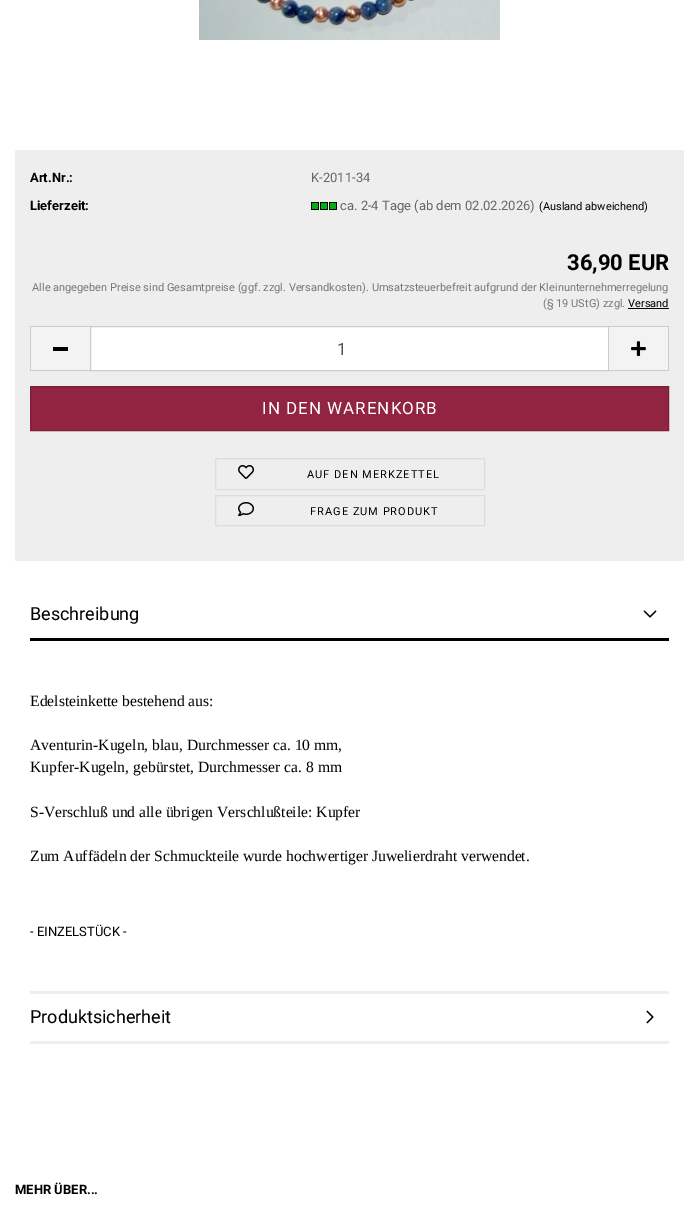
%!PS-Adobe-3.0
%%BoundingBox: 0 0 699 1219
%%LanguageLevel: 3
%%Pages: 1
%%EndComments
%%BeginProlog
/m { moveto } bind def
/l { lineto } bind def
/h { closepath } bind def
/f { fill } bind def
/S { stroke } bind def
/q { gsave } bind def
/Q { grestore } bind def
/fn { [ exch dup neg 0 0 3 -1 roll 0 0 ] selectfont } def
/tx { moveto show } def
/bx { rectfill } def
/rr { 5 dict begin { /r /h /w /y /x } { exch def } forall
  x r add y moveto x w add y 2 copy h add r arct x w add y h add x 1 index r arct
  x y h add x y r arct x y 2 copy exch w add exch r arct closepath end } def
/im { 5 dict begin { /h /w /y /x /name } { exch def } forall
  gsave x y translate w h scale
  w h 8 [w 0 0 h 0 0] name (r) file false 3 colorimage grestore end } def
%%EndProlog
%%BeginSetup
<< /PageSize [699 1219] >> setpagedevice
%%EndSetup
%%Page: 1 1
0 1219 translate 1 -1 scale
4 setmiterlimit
1 setgray
0 0 699 1219 bx
(image0.raw) 199 0 301 40 im
0.933 setgray
15 150 669 411 2 rr f
/Roboto-Bold 13 fn
0 setgray
(Art.Nr.:) 30 182 tx
/Roboto-Regular 13 fn
0.4 setgray
(K-2011-34) 311 182 tx
/Roboto-Bold 13 fn
0 setgray
(Lieferzeit:) 30 210 tx
(image1.raw) 311 202 26 8 im
/Roboto-Regular 13 fn
0.4 setgray
(ca. 2-4 Tage \(ab dem 02.02.2026\)) 340 210 tx
/Roboto-Regular 11 fn
0 setgray
(\(Ausland abweichend\)) 539 210 tx
/Roboto-Bold 22 fn
(36,90 EUR) 567 270 tx
/Roboto-Regular 11 fn
0.467 setgray
(Alle angegeben Preise sind Gesamtpreise \(ggf. zzgl. Versandkosten\). Umsatzsteuerbefreit aufgrund der Kleinunternehmerregelung) 32 291 tx
(\(§ 19 UStG\) zzgl.) 543 307 tx
0 setgray
(Versand) 628 307 tx
628 308 41 1 bx
0.953 setgray
31 327 59 43 bx
0.8 setgray
30 326 60 1 bx
30 370 60 1 bx
30 326 1 45 bx
0 setgray
53 347 15 4 bx
1 setgray
90.5 326.5 m 608.5 326.5 l 608.5 370.5 l 90.5 370.5 l h q f Q
0.8 setgray
S
/Roboto-Regular 17 fn
0.333 setgray
(1) 337 355 tx
0.953 setgray
609 327 59 43 bx
0.8 setgray
609 326 60 1 bx
668 326 1 45 bx
609 370 60 1 bx
(image2.raw) 631 341 15 16 im
0.569 0.141 0.251 setrgbcolor
30.5 386.5 m 668.5 386.5 l 668.5 430.5 l 30.5 430.5 l h q f Q
0.49 0.122 0.216 setrgbcolor
S
1 setgray
262 414 m 1 0 (IN DEN WARENKORB) ashow
0.867 setgray
215.5 458.5 269 31 rectstroke
(image3.raw) 238 465 16 14 im
/Roboto-Regular 11 fn
0 setgray
307 478 m 1 0 (AUF DEN MERKZETTEL) ashow
0.867 setgray
215.5 495.5 269 30 rectstroke
(image4.raw) 238 502 16 14 im
0 setgray
310 515 m 1 0 (FRAGE ZUM PRODUKT) ashow
30 638 639 3 bx
/Roboto-Regular 18 fn
(Beschreibung) 30 620 tx
(image5.raw) 643 610 14 8 im
0.933 setgray
30 991 639 3 bx
/LiberationSerif-Regular 15.6 fn
0 setgray
(Edelsteinkette bestehend aus:) 30 706 tx
(Aventurin-Kugeln, blau, Durchmesser ca. 10 mm,) 30 750 tx
(Kupfer-Kugeln, gebürstet, Durchmesser ca. 8 mm) 30 772 tx
(S-Verschluß und alle übrigen Verschlußteile: Kupfer) 30 817 tx
(Zum Auffädeln der Schmuckteile wurde hochwertiger Juwelierdraht verwendet.) 30 861 tx
/Roboto-Regular 13 fn
(- EINZELSTÜCK -) 30 936 tx
0.933 setgray
30 1041 639 3 bx
/Roboto-Regular 18 fn
0 setgray
(Produktsicherheit) 30 1023 tx
(image6.raw) 646 1010 8 14 im
/Roboto-Bold 13 fn
(MEHR ÜBER...) 15 1194 tx
showpage
%%EOF
